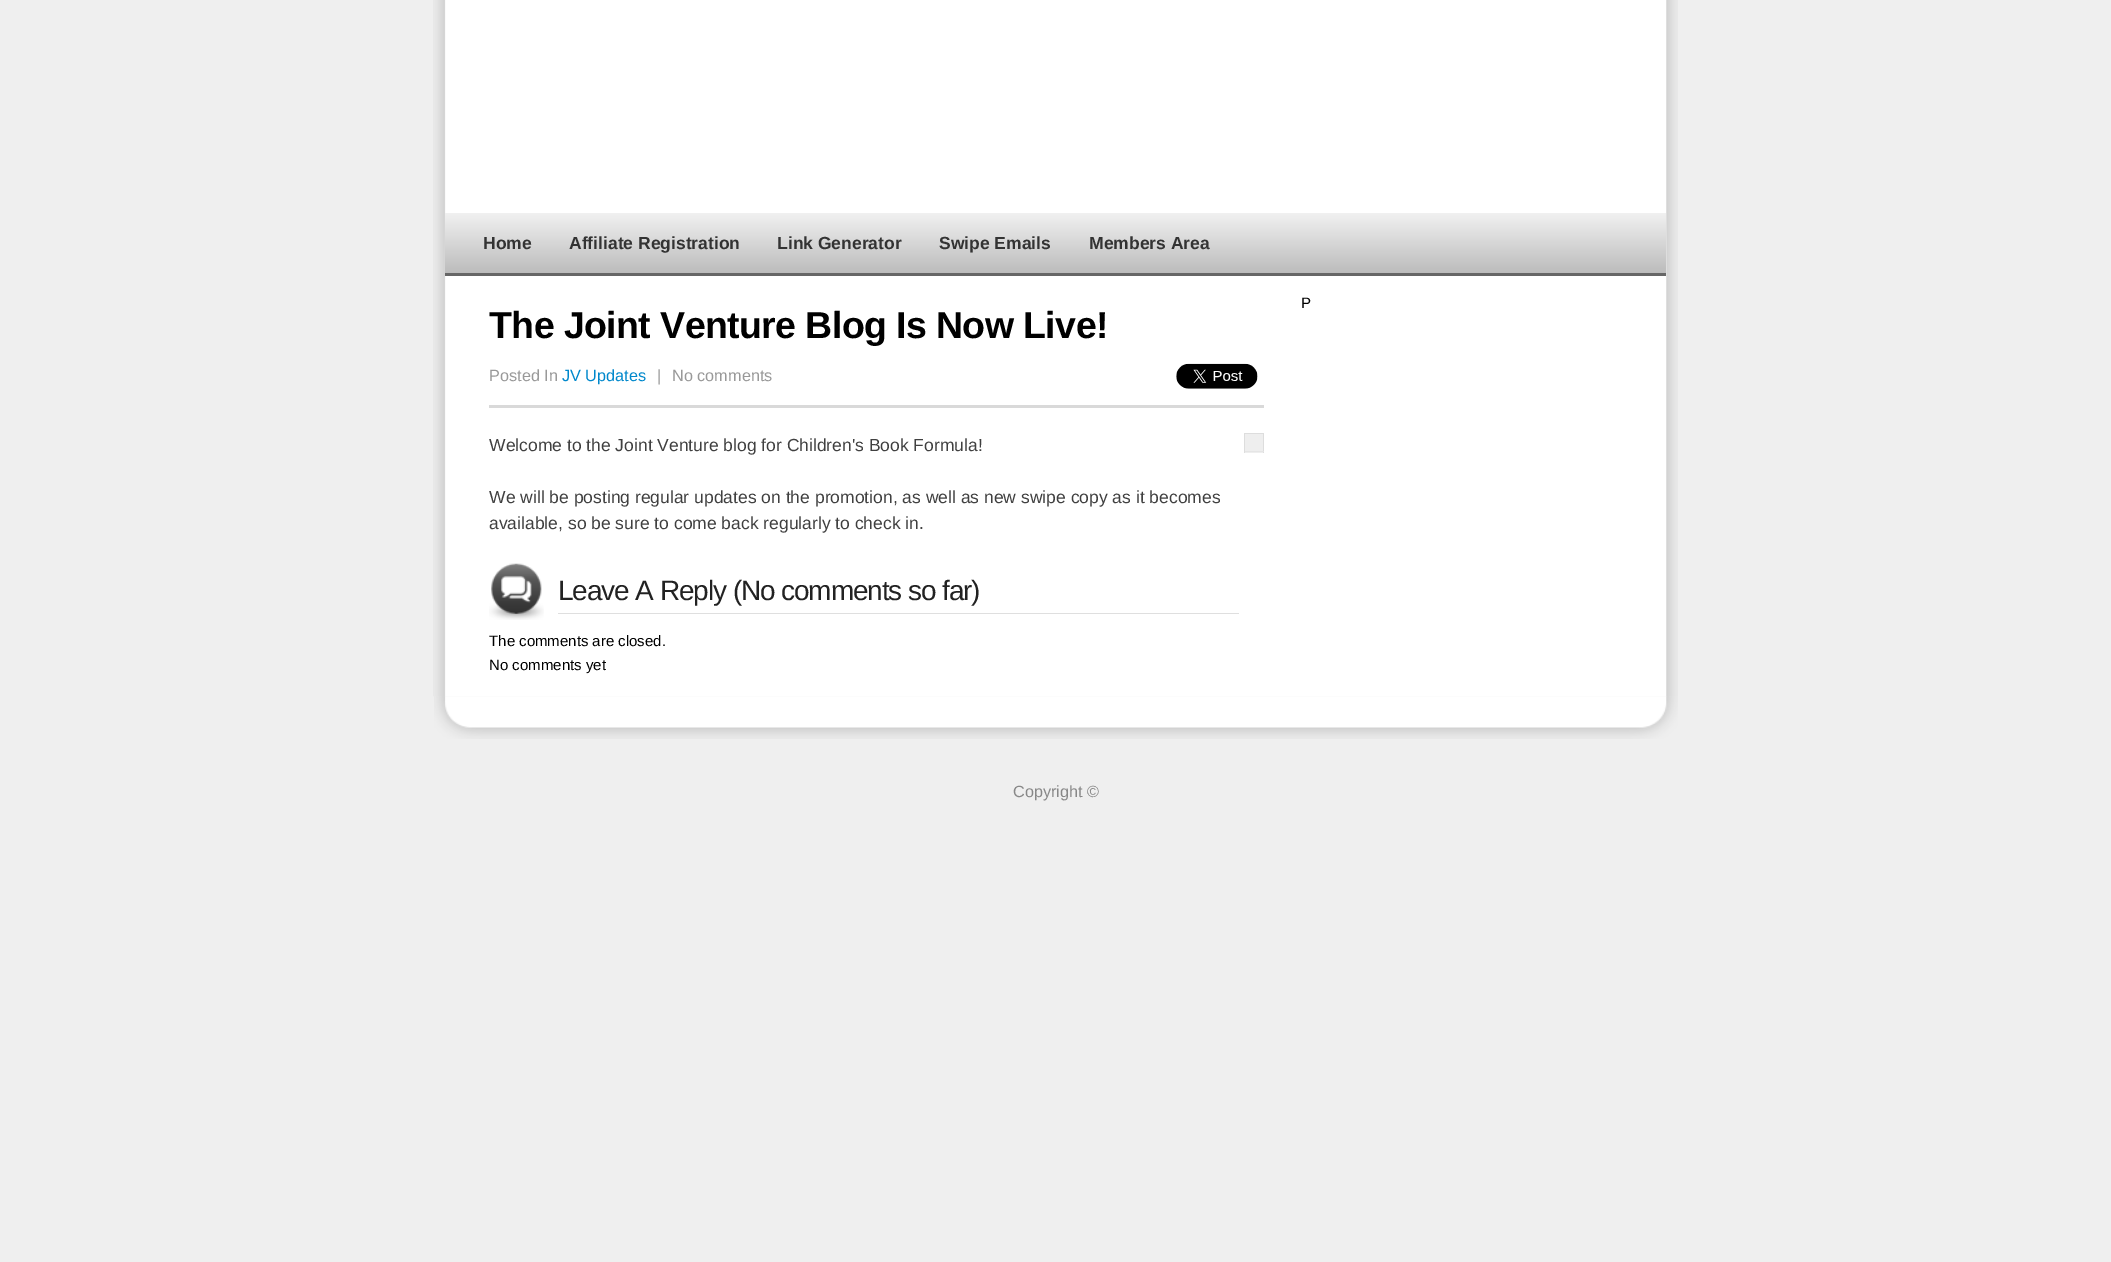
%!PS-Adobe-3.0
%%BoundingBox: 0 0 2111 1262
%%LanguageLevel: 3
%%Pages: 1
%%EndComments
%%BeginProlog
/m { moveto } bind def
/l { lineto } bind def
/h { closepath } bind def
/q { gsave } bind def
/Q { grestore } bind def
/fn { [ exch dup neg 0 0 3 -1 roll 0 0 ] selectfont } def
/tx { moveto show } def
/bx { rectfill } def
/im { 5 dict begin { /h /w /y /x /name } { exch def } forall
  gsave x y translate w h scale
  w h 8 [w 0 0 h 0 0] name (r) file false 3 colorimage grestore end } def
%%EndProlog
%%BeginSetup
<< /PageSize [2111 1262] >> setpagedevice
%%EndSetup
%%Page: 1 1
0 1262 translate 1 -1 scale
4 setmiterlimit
0.937 setgray
0 0 2111 1262 bx
(image0.raw) 433 0 1245 697 im
q 445 213 m 1666 213 l 1666 273 l 445 273 l h clip newpath
<< /ShadingType 2 /ColorSpace /DeviceRGB /Coords [445 213 445 273] /Extend [true true] /Function << /FunctionType 2 /Domain [0 1] /C0 [0.945 0.945 0.945] /C1 [0.737 0.737 0.737] /N 1 >> >> shfill Q
0.4 setgray
445 273 1221 3 bx
/LiberationSans-Bold 17.5 fn
0.2 setgray
(Home) 483 249 tx
(Affiliate Registration) 569 249 tx
(Link Generator) 777 249 tx
(Swipe Emails) 939 249 tx
(Members Area) 1089 249 tx
/LiberationSans-Regular 15 fn
0 setgray
(P) 1301 308 tx
/LiberationSans-Bold 37.5 fn
489 338 m -0.6 0 (The Joint Venture Blog Is Now Live!) ashow
0.851 setgray
489 405 775 3 bx
/LiberationSans-Regular 16.25 fn
0.6 setgray
(Posted In) 489 381 tx
0 0.533 0.8 setrgbcolor
(JV Updates) 562 381 tx
0.6 setgray
(|) 657 381 tx
(No comments) 672 381 tx
(image1.raw) 1176 363 82 26 im
/LiberationSans-Regular 17.5 fn
0.251 setgray
(Welcome to the Joint Venture blog for Children's Book Formula!) 489 451 tx
0.933 setgray
1245 434 18 19 bx
0.867 setgray
1244 433 20 1 bx
1263 433 1 20 bx
0.898 setgray
1244 451 20 1 bx
0.867 setgray
1244 433 1 20 bx
0.251 setgray
(We will be posting regular updates on the promotion, as well as new swipe copy as it becomes) 489 503 tx
(available, so be sure to come back regularly to check in.) 489 529 tx
(image2.raw) 489 563 55 57 im
0.875 setgray
558 613 681 1 bx
/LiberationSans-Regular 28 fn
0.133 setgray
558 600 m -1.1 0 (Leave A Reply \(No comments so far\)) ashow
/LiberationSans-Regular 15 fn
0 setgray
(The comments are closed.) 489 646 tx
(No comments yet) 489 670 tx
(image3.raw) 434 696 1244 43 im
/LiberationSans-Regular 16.25 fn
0.533 setgray
(Copyright ©) 1013 797 tx
showpage
%%EOF
